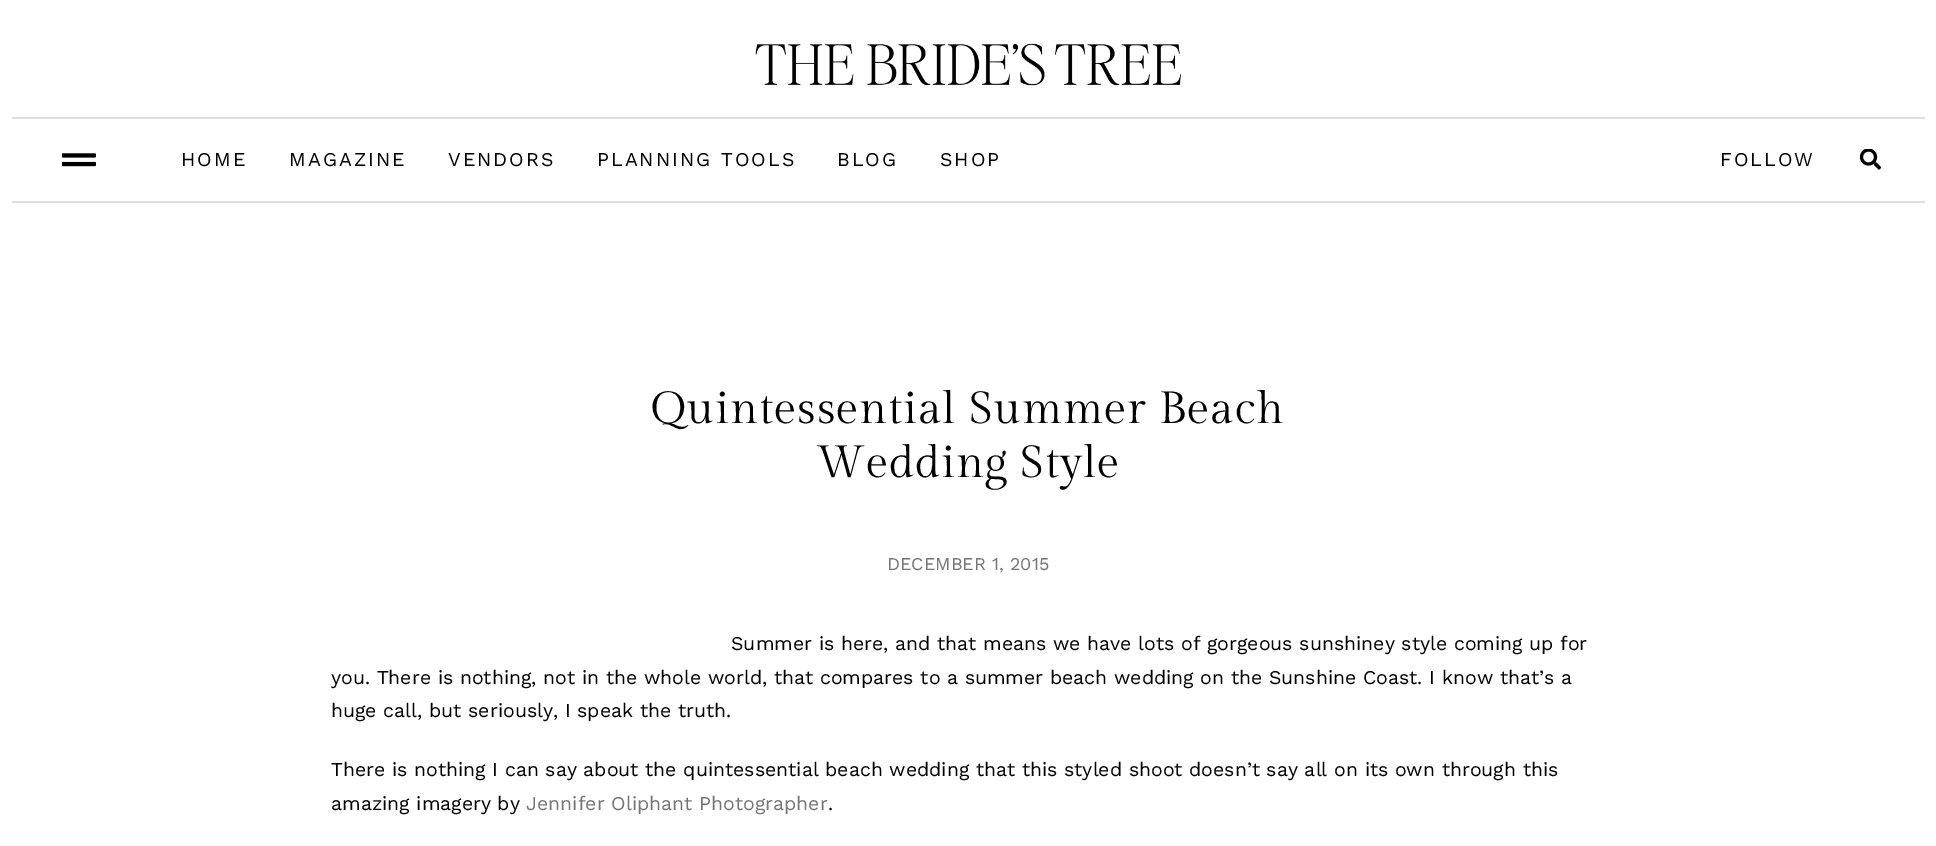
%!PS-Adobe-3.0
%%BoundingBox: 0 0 1936 846
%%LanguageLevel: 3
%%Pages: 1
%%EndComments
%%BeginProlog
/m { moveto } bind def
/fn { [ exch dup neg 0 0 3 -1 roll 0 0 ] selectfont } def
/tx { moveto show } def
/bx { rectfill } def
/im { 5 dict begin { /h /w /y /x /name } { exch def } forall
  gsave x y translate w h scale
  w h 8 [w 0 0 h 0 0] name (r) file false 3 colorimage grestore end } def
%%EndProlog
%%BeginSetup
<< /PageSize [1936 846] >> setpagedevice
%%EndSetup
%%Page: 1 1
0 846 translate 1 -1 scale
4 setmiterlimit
1 setgray
0 0 1936 846 bx
(image0.raw) 755 43 426 43 im
0.875 setgray
12 117 1913 2 bx
12 201 1913 2 bx
(image1.raw) 62 153 34 14 im
/WorkSans-Regular 19.5 fn
0 setgray
181 166 m 2 0 (HOME) ashow
289 166 m 2 0 (MAGAZINE) ashow
448 166 m 2 0 (VENDORS) ashow
597 166 m 2 0 (PLANNING TOOLS) ashow
837 166 m 2 0 (BLOG) ashow
940 166 m 2 0 (SHOP) ashow
1720 166 m 2 0 (FOLLOW) ashow
(image2.raw) 1860 149 21 21 im
/GildaDisplay-Regular 45 fn
651 423 m 0.75 0 (Quintessential Summer Beach) ashow
816 477 m 0.75 0 (Wedding Style) ashow
/WorkSans-Regular 18 fn
0.459 setgray
(DECEMBER 1, 2015) 887 570 tx
/WorkSans-Regular 19.5 fn
0 setgray
(Summer is here, and that means we have lots of gorgeous sunshiney style coming up for) 731 650 tx
(you. There is nothing, not in the whole world, that compares to a summer beach wedding on the Sunshine Coast. I know that’s a) 331 684 tx
(huge call, but seriously, I speak the truth.) 331 717 tx
(There is nothing I can say about the quintessential beach wedding that this styled shoot doesn’t say all on its own through this) 331 776 tx
(amazing imagery by) 331 810 tx
0.459 setgray
(Jennifer Oliphant Photographer) 526 810 tx
0 setgray
(.) 828 810 tx
showpage
%%EOF
